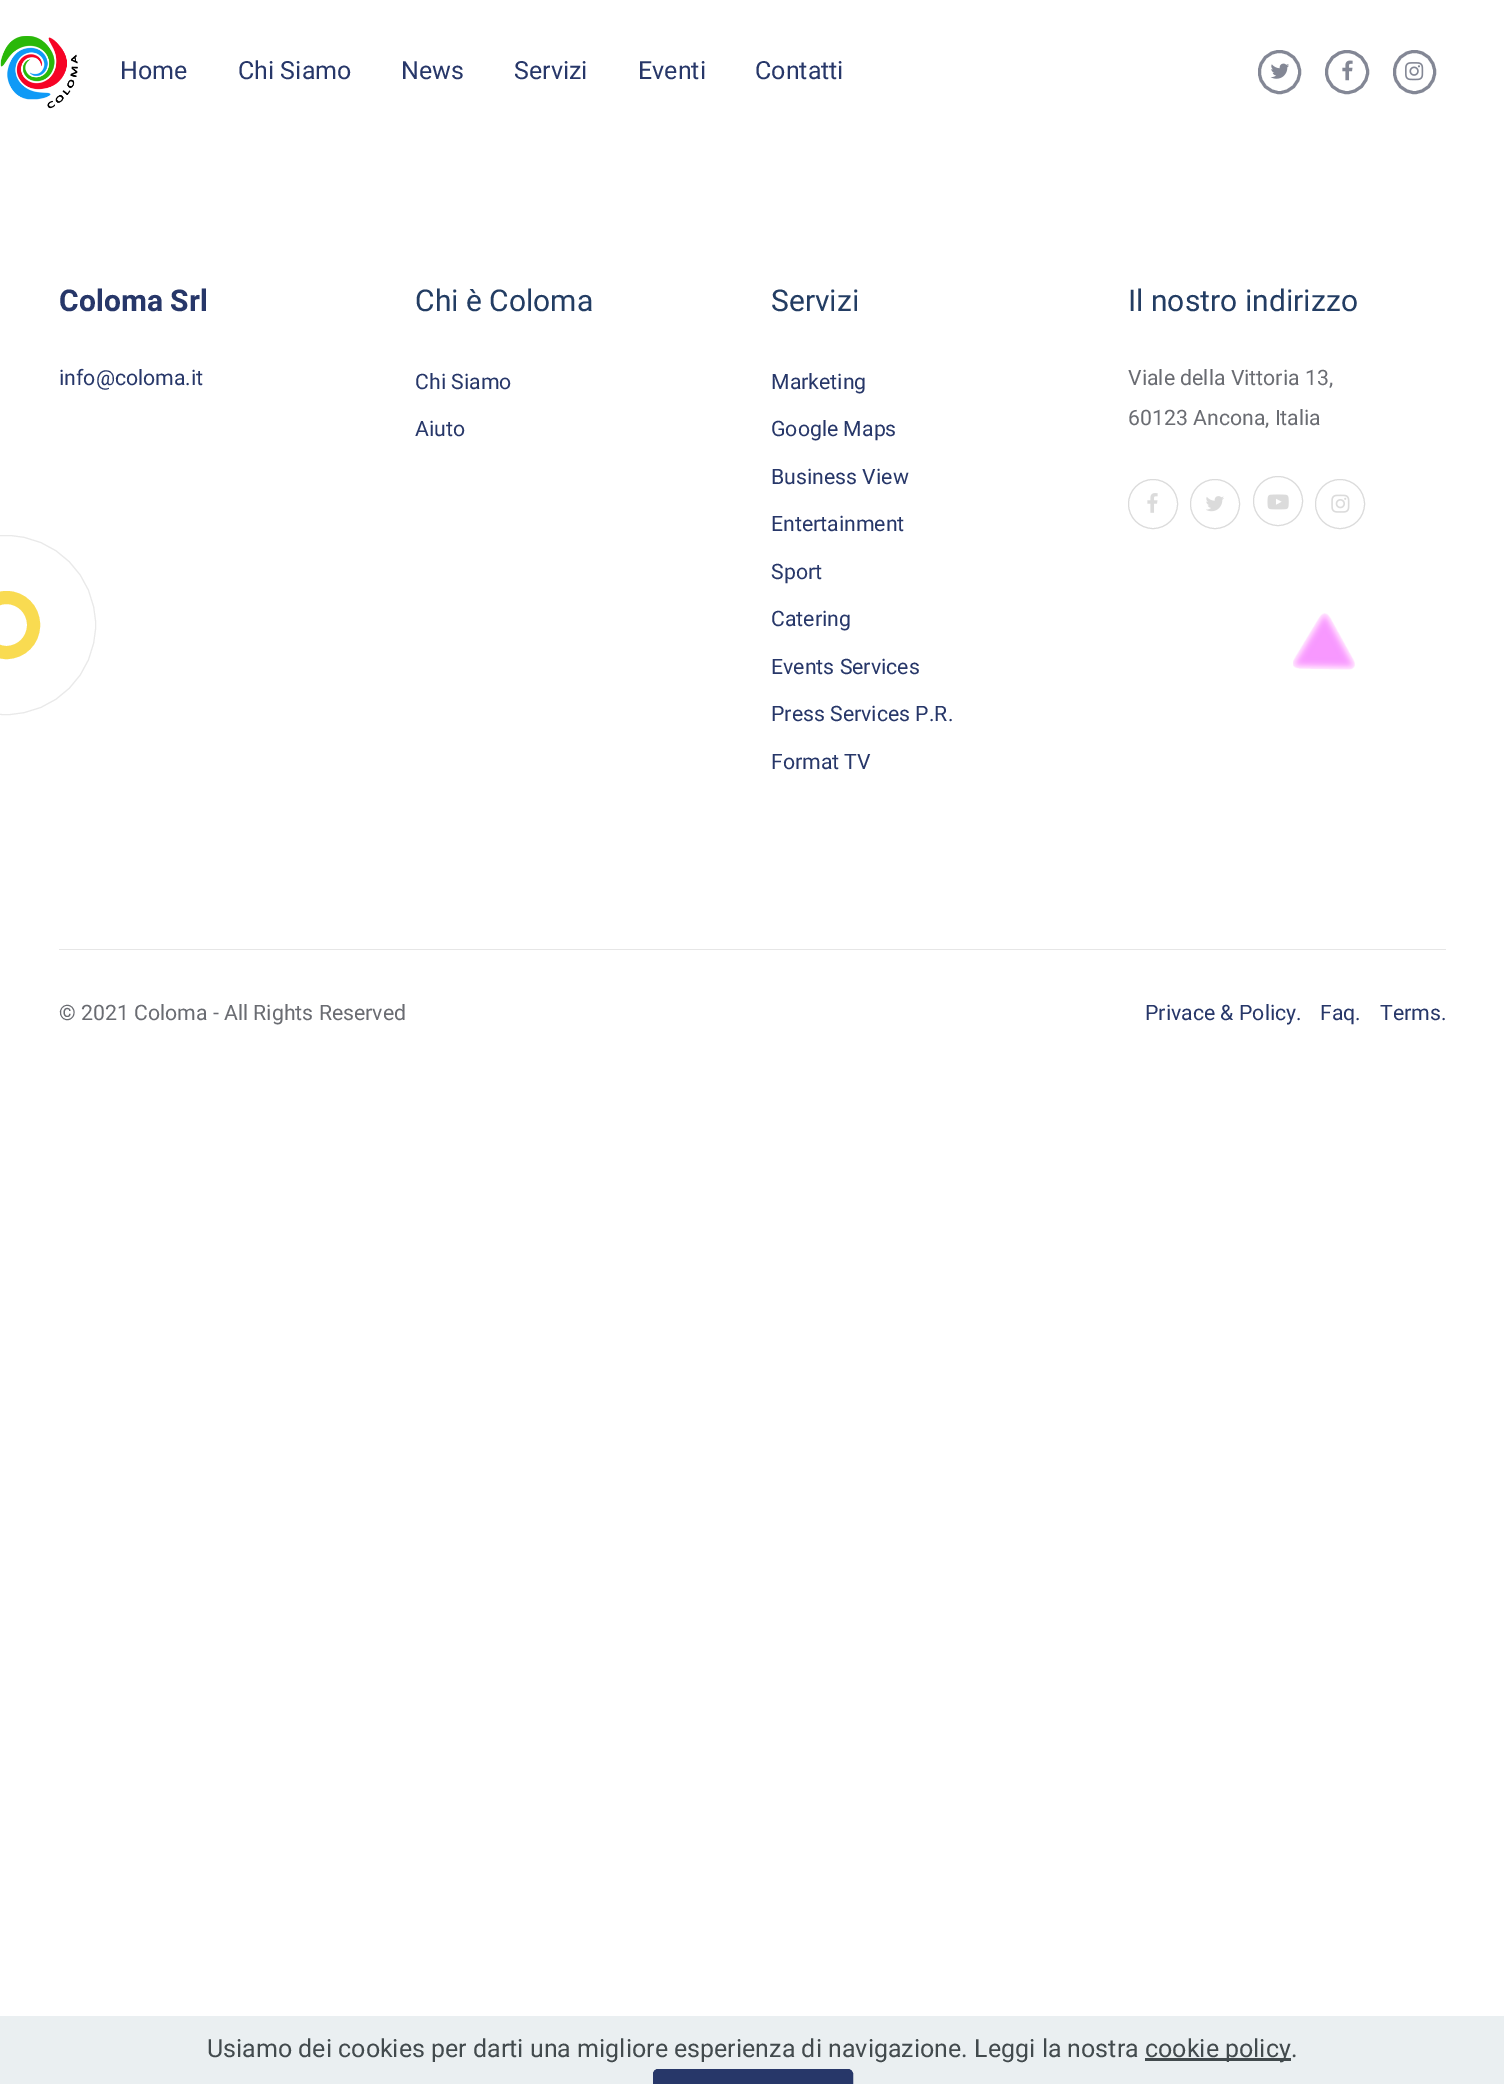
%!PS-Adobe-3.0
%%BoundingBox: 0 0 1504 2084
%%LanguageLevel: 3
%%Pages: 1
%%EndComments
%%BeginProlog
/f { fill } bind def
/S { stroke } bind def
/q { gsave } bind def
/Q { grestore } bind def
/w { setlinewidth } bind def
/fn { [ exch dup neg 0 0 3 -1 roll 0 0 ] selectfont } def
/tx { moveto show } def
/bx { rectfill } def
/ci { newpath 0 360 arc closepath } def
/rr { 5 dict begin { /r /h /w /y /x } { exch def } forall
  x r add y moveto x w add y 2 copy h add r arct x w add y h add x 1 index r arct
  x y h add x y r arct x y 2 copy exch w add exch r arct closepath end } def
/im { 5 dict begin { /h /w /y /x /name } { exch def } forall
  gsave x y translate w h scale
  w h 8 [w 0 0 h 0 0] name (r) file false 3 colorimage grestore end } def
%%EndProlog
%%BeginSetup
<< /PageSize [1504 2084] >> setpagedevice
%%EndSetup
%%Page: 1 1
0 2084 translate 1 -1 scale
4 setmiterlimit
1 setgray
0 0 1504 2084 bx
(image0.raw) 0 36 78 73 im
/Heebo-Regular 25 fn
0.153 0.216 0.412 setrgbcolor
(Home) 120 79 tx
(Chi Siamo) 238 79 tx
(News) 401 79 tx
(Servizi) 514 79 tx
(Eventi) 638 79 tx
(Contatti) 755 79 tx
0.514 0.529 0.584 setrgbcolor
3 w
1259.5 51.5 40 41 20 rr S
(image1.raw) 1270 63 19 16 im
1347 72 20.5 ci S
(image2.raw) 1342 60 11 21 im
1394.5 51.5 40 41 20 rr S
(image3.raw) 1405 62 19 19 im
/Heebo-Bold 30 fn
0.153 0.216 0.412 setrgbcolor
(Coloma Srl) 59 311 tx
/Heebo-Regular 21.25 fn
(info@coloma.it) 59 385 tx
/Heebo-Regular 30 fn
0.137 0.239 0.388 setrgbcolor
(Chi è Coloma) 415 311 tx
/Heebo-Regular 21.25 fn
0.153 0.216 0.412 setrgbcolor
(Chi Siamo) 415 389 tx
(Aiuto) 415 436 tx
/Heebo-Regular 30 fn
0.137 0.239 0.388 setrgbcolor
(Servizi) 771 311 tx
/Heebo-Regular 21.25 fn
0.153 0.216 0.412 setrgbcolor
(Marketing) 771 389 tx
(Google Maps) 771 436 tx
(Business View) 771 484 tx
(Entertainment) 771 531 tx
(Sport) 771 579 tx
(Catering) 771 626 tx
(Events Services) 771 674 tx
(Press Services P.R.) 771 721 tx
(Format TV) 771 769 tx
/Heebo-Regular 30 fn
0.137 0.239 0.388 setrgbcolor
(Il nostro indirizzo) 1128 311 tx
/Heebo-Regular 21.25 fn
0.416 0.424 0.447 setrgbcolor
(Viale della Vittoria 13,) 1128 385 tx
(60123 Ancona, Italia) 1128 425 tx
0.859 setgray
1 w
1153 504 24.5 ci S
(image4.raw) 1147 493 11 20 im
1215 504 24.5 ci S
(image5.raw) 1206 496 18 16 im
1278 501 24.5 ci S
(image6.raw) 1267 494 22 16 im
1340 504 24.5 ci S
(image7.raw) 1331 494 19 19 im
0.902 setgray
59 949 1387 1 bx
0.416 0.424 0.447 setrgbcolor
(© 2021 Coloma - All Rights Reserved) 59 1020 tx
0.153 0.216 0.412 setrgbcolor
(Privace & Policy.) 1145 1020 tx
(Faq.) 1320 1020 tx
(Terms.) 1380 1020 tx
0.976 0.859 0.318 setrgbcolor
13 w
-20.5 597.5 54 55 27 rr S
0.914 setgray
1 w
6 625 89.5 ci S
(image8.raw) 1293 613 62 57 im
0.918 0.937 0.945 setrgbcolor
0 2016 1504 68 bx
/Heebo-Regular 25 fn
0.259 0.29 0.302 setrgbcolor
(Usiamo dei cookies per darti una migliore esperienza di navigazione. Leggi la nostra) 207 2057 tx
1145 2058 146 3 bx
(cookie policy.) 1145 2057 tx
0.153 0.216 0.412 setrgbcolor
653.5 2069.5 199 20 4.5 rr q f Q
S
showpage
%%EOF
